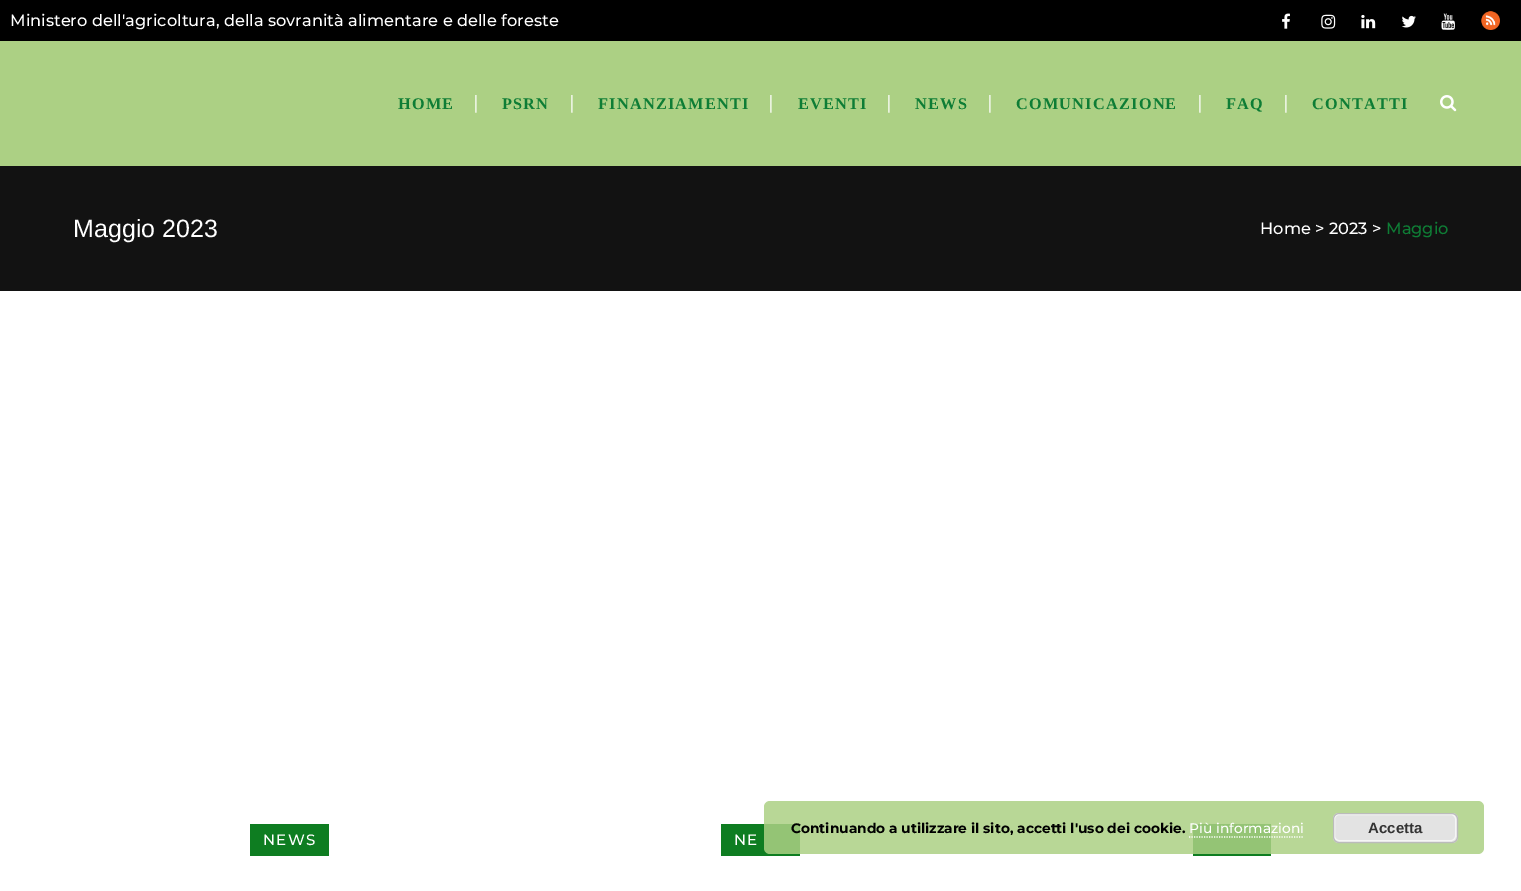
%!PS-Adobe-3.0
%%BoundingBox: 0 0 1521 891
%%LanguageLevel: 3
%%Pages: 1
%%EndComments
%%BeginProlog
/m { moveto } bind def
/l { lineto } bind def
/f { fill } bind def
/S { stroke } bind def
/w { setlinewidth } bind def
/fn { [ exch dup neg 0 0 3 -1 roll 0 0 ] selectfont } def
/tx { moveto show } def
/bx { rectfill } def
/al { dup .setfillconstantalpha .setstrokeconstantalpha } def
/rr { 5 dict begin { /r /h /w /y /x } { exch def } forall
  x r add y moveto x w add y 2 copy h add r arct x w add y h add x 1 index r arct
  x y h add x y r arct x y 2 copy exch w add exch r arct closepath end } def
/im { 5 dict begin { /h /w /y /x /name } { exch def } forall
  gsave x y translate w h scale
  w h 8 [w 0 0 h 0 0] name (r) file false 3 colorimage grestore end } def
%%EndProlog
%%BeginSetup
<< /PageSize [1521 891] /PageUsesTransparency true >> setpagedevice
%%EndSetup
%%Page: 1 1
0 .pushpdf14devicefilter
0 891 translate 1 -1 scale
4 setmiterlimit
1 setgray
0 0 1521 891 bx
0 setgray
0 0 1521 41 bx
/Montserrat-Medium 16.25 fn
1 setgray
(Ministero dell'agricoltura, della sovranità alimentare e delle foreste) 10 26 tx
(image0.raw) 1282 13 8 16 im
(image1.raw) 1321 14 15 15 im
(image2.raw) 1361 14 15 15 im
(image3.raw) 1401 15 15 13 im
(image4.raw) 1441 13 14 17 im
(image5.raw) 1481 11 19 19 im
0.675 0.816 0.518 setrgbcolor
0 41 1521 125 bx
/LiberationSerif-Bold 16.25 fn
0.055 0.49 0.208 setrgbcolor
398 109 m 1.25 0 (HOME) ashow
/Montserrat-Regular 19 fn
1 setgray
(|) 473 109 tx
/LiberationSerif-Bold 16.25 fn
0.055 0.49 0.208 setrgbcolor
502 109 m 1.25 0 (PSRN) ashow
/Montserrat-Regular 19 fn
1 setgray
(|) 569 109 tx
/LiberationSerif-Bold 16.25 fn
0.055 0.49 0.208 setrgbcolor
598 109 m 1.25 0 (FINANZIAMENTI) ashow
/Montserrat-Regular 19 fn
1 setgray
(|) 768 109 tx
/LiberationSerif-Bold 16.25 fn
0.055 0.49 0.208 setrgbcolor
798 109 m 1.25 0 (EVENTI) ashow
/Montserrat-Regular 19 fn
1 setgray
(|) 886 109 tx
/LiberationSerif-Bold 16.25 fn
0.055 0.49 0.208 setrgbcolor
915 109 m 1.25 0 (NEWS) ashow
/Montserrat-Regular 19 fn
1 setgray
(|) 987 109 tx
/LiberationSerif-Bold 16.25 fn
0.055 0.49 0.208 setrgbcolor
1016 109 m 1.25 0 (COMUNICAZIONE) ashow
/Montserrat-Regular 19 fn
1 setgray
(|) 1197 109 tx
/LiberationSerif-Bold 16.25 fn
0.055 0.49 0.208 setrgbcolor
1226 109 m 1.25 0 (FAQ) ashow
/Montserrat-Regular 19 fn
1 setgray
(|) 1283 109 tx
/LiberationSerif-Bold 16.25 fn
0.055 0.49 0.208 setrgbcolor
1312 109 m 1.25 0 (CONTATTI) ashow
(image6.raw) 1440 95 17 17 im
0.071 setgray
0 166 1521 125 bx
/LiberationSans-Regular 25 fn
1 setgray
(Maggio 2023) 73 237 tx
/Montserrat-Medium 16.25 fn
(Home > 2023 >) 1260 234 tx
0.055 0.49 0.208 setrgbcolor
(Maggio) 1386 234 tx
0.055 0.49 0.129 setrgbcolor
250 824 79 32 bx
/Montserrat-Medium 15 fn
1 setgray
263 845 m 1.25 0 (NEWS) ashow
0.055 0.49 0.129 setrgbcolor
721 824 79 32 bx
1 setgray
734 845 m 1.25 0 (NE) ashow
0.055 0.49 0.129 setrgbcolor
1193 824 78 32 bx
0.85 al
0.675 0.816 0.518 setrgbcolor
764 801 720 53 6 rr f
/Montserrat-Bold 13.75 fn
1 al
0 setgray
(Continuando a utilizzare il sito, accetti l'uso dei cookie.) 791 833 tx
/Montserrat-Medium 13.75 fn
1 setgray
(Più informazioni) 1189 833 tx
1.2 w
[1.25 1.25] 0 setdash
1189 837 m 1304 837 l S
0.89 setgray
1333 813 125 30 6 rr f
0.965 setgray
1 w
[] 0 setdash
1334.5 814.5 121 26 4.5 rr S
0.733 setgray
1333.5 813.5 124 29 5.5 rr S
/LiberationSans-Bold 15 fn
0.2 setgray
(Accetta) 1368 833 tx
.poppdf14devicefilter showpage
%%EOF
